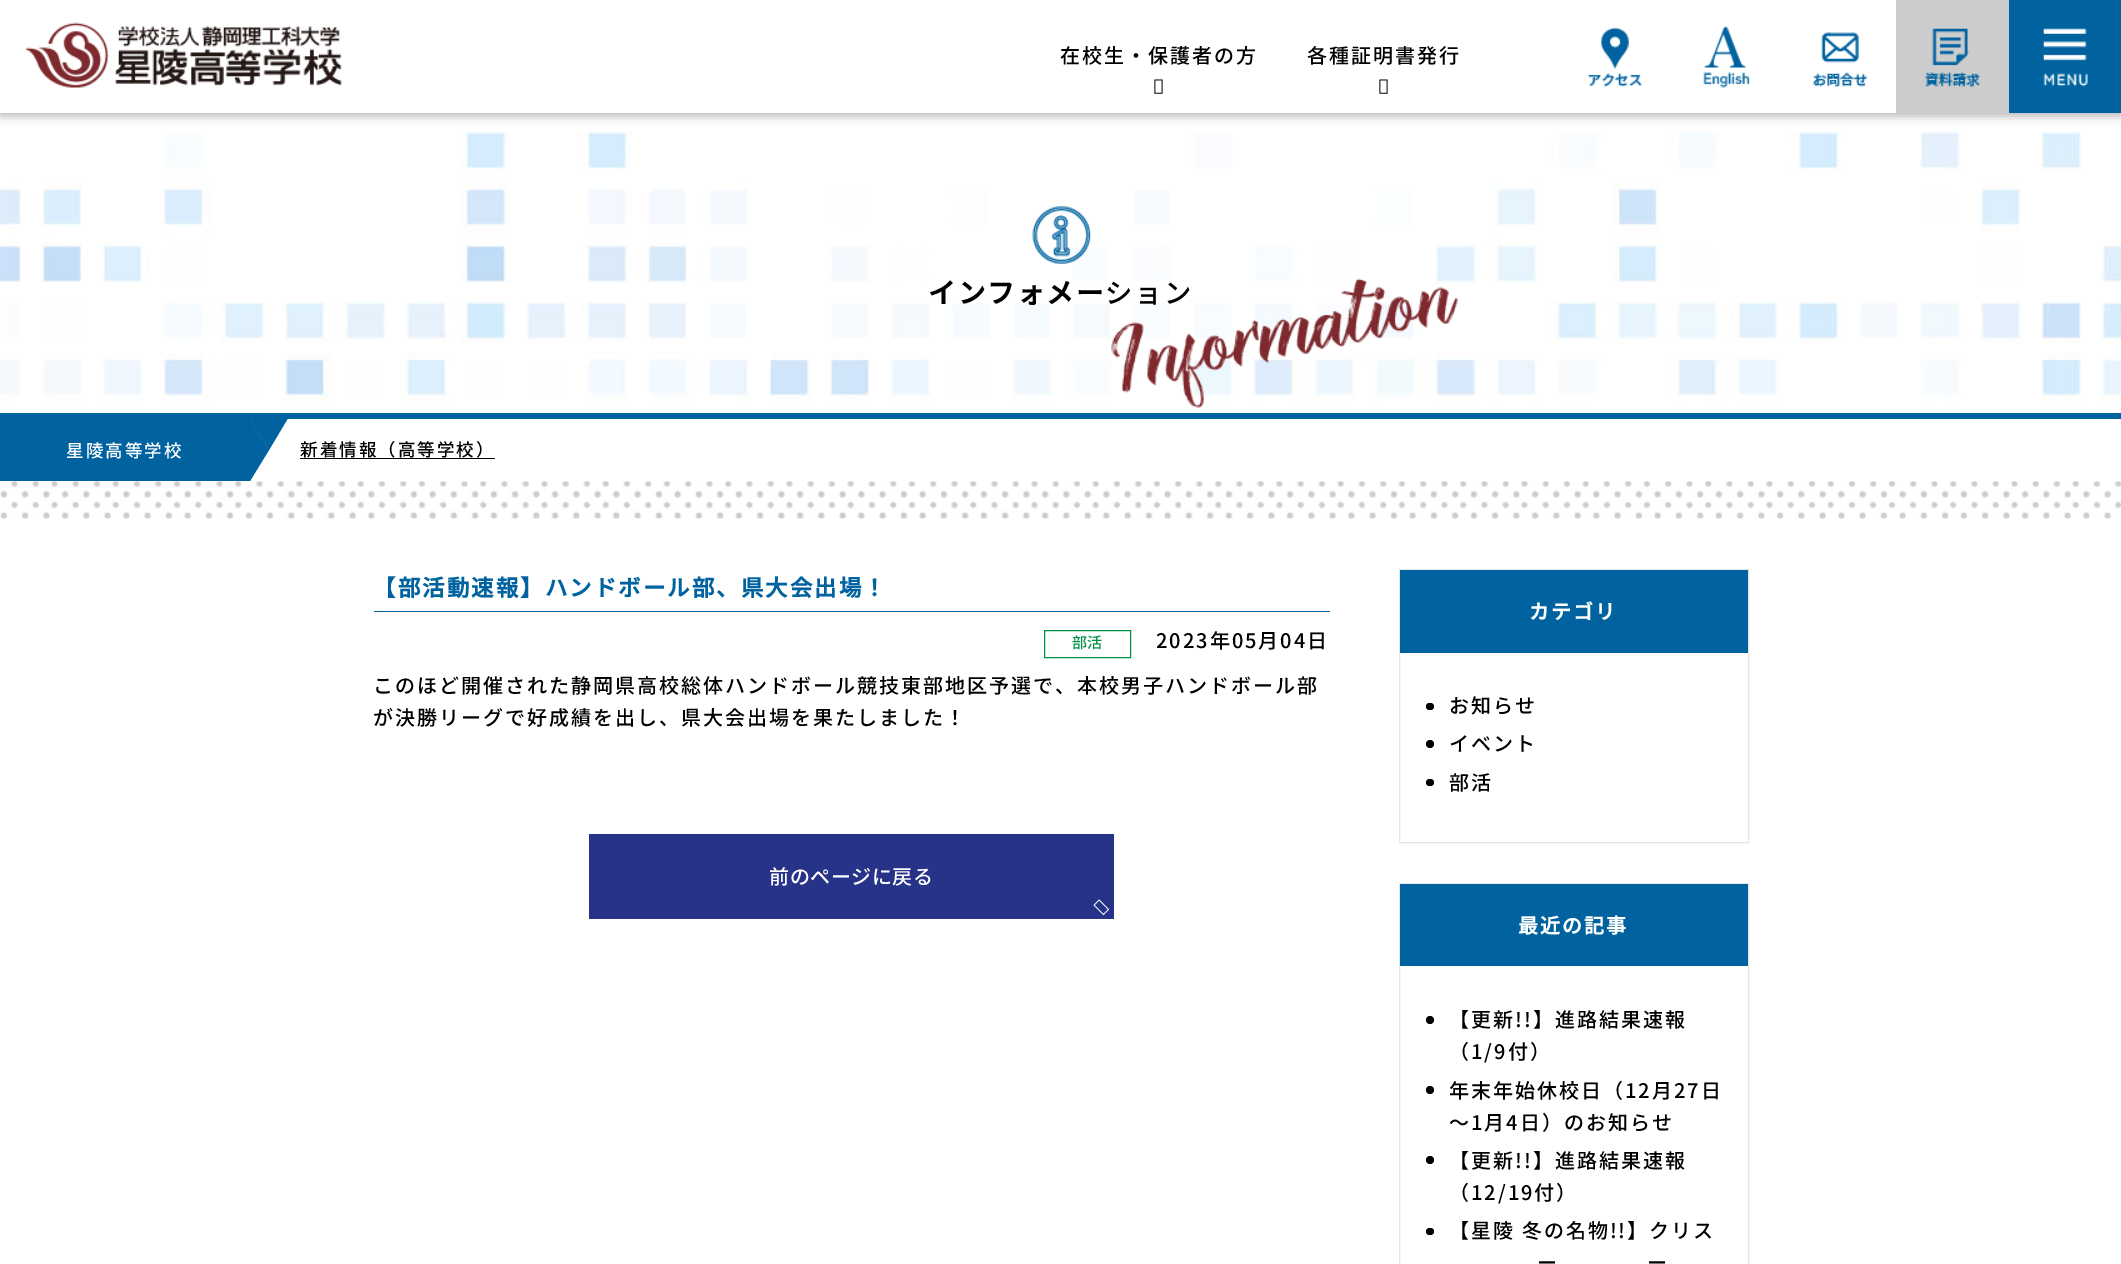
%!PS-Adobe-3.0
%%BoundingBox: 0 0 2121 1264
%%LanguageLevel: 3
%%Pages: 1
%%EndComments
%%BeginProlog
/m { moveto } bind def
/l { lineto } bind def
/h { closepath } bind def
/f { fill } bind def
/fn { [ exch dup neg 0 0 3 -1 roll 0 0 ] selectfont } def
/tx { moveto show } def
/bx { rectfill } def
/al { dup .setfillconstantalpha .setstrokeconstantalpha } def
/ci { newpath 0 360 arc closepath } def
/rr { 5 dict begin { /r /h /w /y /x } { exch def } forall
  x r add y moveto x w add y 2 copy h add r arct x w add y h add x 1 index r arct
  x y h add x y r arct x y 2 copy exch w add exch r arct closepath end } def
/sh { 12 dict begin { /a /b /q /h /w /y /x } { exch def } forall gsave /was 0 def
  9 -2 -9 { dup b mul 4 div /e exch def 1 sub .425 mul 2.718 exch exp 1 add a .99 .min exch div /now exch def
    1 1 now sub 1 was sub div sub al /was now def
    w h .min e 2 mul add 0 gt { x e sub y e sub w e 2 mul add h e 2 mul add
      q e add b .6 mul add w h .min 2 div e add .min 0 .max rr fill } if } for grestore end } def
/im { 5 dict begin { /h /w /y /x /name } { exch def } forall
  gsave x y translate w h scale
  w h 8 [w 0 0 h 0 0] name (r) file false 3 colorimage grestore end } def
%%EndProlog
%%BeginSetup
<< /PageSize [2121 1264] /PageUsesTransparency true >> setpagedevice
%%EndSetup
%%Page: 1 1
0 .pushpdf14devicefilter
0 1264 translate 1 -1 scale
4 setmiterlimit
1 setgray
0 0 2121 1264 bx
0 setgray
0 4 2121 112 0 5 0.3 sh
1 setgray
0 0 1896 113 bx
(image0.raw) 25 22 317 66 im
/NotoSansJP-Thin 20 fn
0 setgray
1060 63 m 2 0 (在校生・保護者の方) ashow
(image1.raw) 1154 79 9 15 im
1307 63 m 2 0 (各種証明書発行) ashow
(image1.raw) 1379 79 9 15 im
(image2.raw) 1588 27 54 60 im
(image3.raw) 1703 26 47 62 im
(image4.raw) 1813 32 55 55 im
0.8 setgray
1896 0 113 113 bx
(image5.raw) 1924 28 57 59 im
0 0.388 0.624 setrgbcolor
2009 0 112 113 bx
(image6.raw) 2043 28 45 59 im
(image7.raw) 0 132 2121 270 im
0.8 al
1 setgray
686 182 750 161 bx
1 al
(image8.raw) 1032 206 59 58 im
/NotoSansJP-Bold 27.5 fn
0 setgray
928 303 m 2 0 (インフォメーション) ashow
(image9.raw) 1111 278 347 130 im
0 0.388 0.624 setrgbcolor
0 413 2121 6 bx
0 419 250 62 bx
/NotoSansJP-Thin 17.5 fn
1 setgray
66 457 m 2 0 (星陵高等学校) ashow
0 0.388 0.624 setrgbcolor
250 419 m 287.5 419 l 269 450 l h f
250 481 m 250 419 l 269 450 l h f
0 setgray
300 456 m 2 0 (新着情報（高等学校）) ashow
300 458 195 1 bx
(image10.raw) 0 481 2121 38 im
0 0.388 0.624 setrgbcolor
374 611 956 1 bx
/NotoSansJP-Bold 22.5 fn
373 596 m 2 0 (【部活動速報】ハンドボール部、県大会出場！) ashow
0 0.573 0.271 setrgbcolor
1044.5 630.5 86 27 rectstroke
/NotoSansJP-Thin 15 fn
(部活) 1072 648 tx
/NotoSansJP-Thin 20 fn
0 setgray
1156 648 m 2 0 (2023年05月04日) ashow
373 693 m 2 0 (このほど開催された静岡県高校総体ハンドボール競技東部地区予選で、本校男子ハンドボール部) ashow
373 725 m 2 0 (が決勝リーグで好成績を出し、県大会出場を果たしました！) ashow
0.153 0.2 0.537 setrgbcolor
589 834 525 85 bx
1 setgray
769 884 m 0.5 0 (前のページに戻る) ashow
(image11.raw) 1093 899 17 17 im
0.898 setgray
1399.5 569.5 349 273 rectstroke
0 0.388 0.624 setrgbcolor
1400 570 348 83 bx
/NotoSansJP-Bold 20 fn
1 setgray
1529 619 m 2 0 (カテゴリ) ashow
0 setgray
1426 703 8 7 3.5 rr f
/NotoSansJP-Thin 20 fn
1449 713 m 2 0 (お知らせ) ashow
1430 744 4 ci f
1449 751 m 2 0 (イベント) ashow
1426 779 8 7 3.5 rr f
1449 790 m 2 0 (部活) ashow
0.898 setgray
1399.5 883.5 349 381 rectstroke
0 0.388 0.624 setrgbcolor
1400 884 348 82 bx
/NotoSansJP-Bold 20 fn
1 setgray
1518 933 m 2 0 (最近の記事) ashow
0 setgray
1430 1020 4 ci f
/NotoSansJP-Thin 20 fn
1449 1027 m 2 0 (【更新!!】進路結果速報) ashow
1449 1059 m 2 0 (（1/9付）) ashow
1430 1090 4 ci f
1449 1098 m 2 0 (年末年始休校日（12月27日) ashow
1449 1130 m 2 0 (～1月4日）のお知らせ) ashow
1430 1160 4 ci f
1449 1168 m 2 0 (【更新!!】進路結果速報) ashow
1449 1200 m 2 0 (（12/19付）) ashow
1426 1228 8 7 3.5 rr f
1449 1238 m 2 0 (【星陵 冬の名物!!】クリス) ashow
1537 1270 m 2 0 (ー) ashow
1647 1270 m 2 0 (ー) ashow
.poppdf14devicefilter showpage
%%EOF
